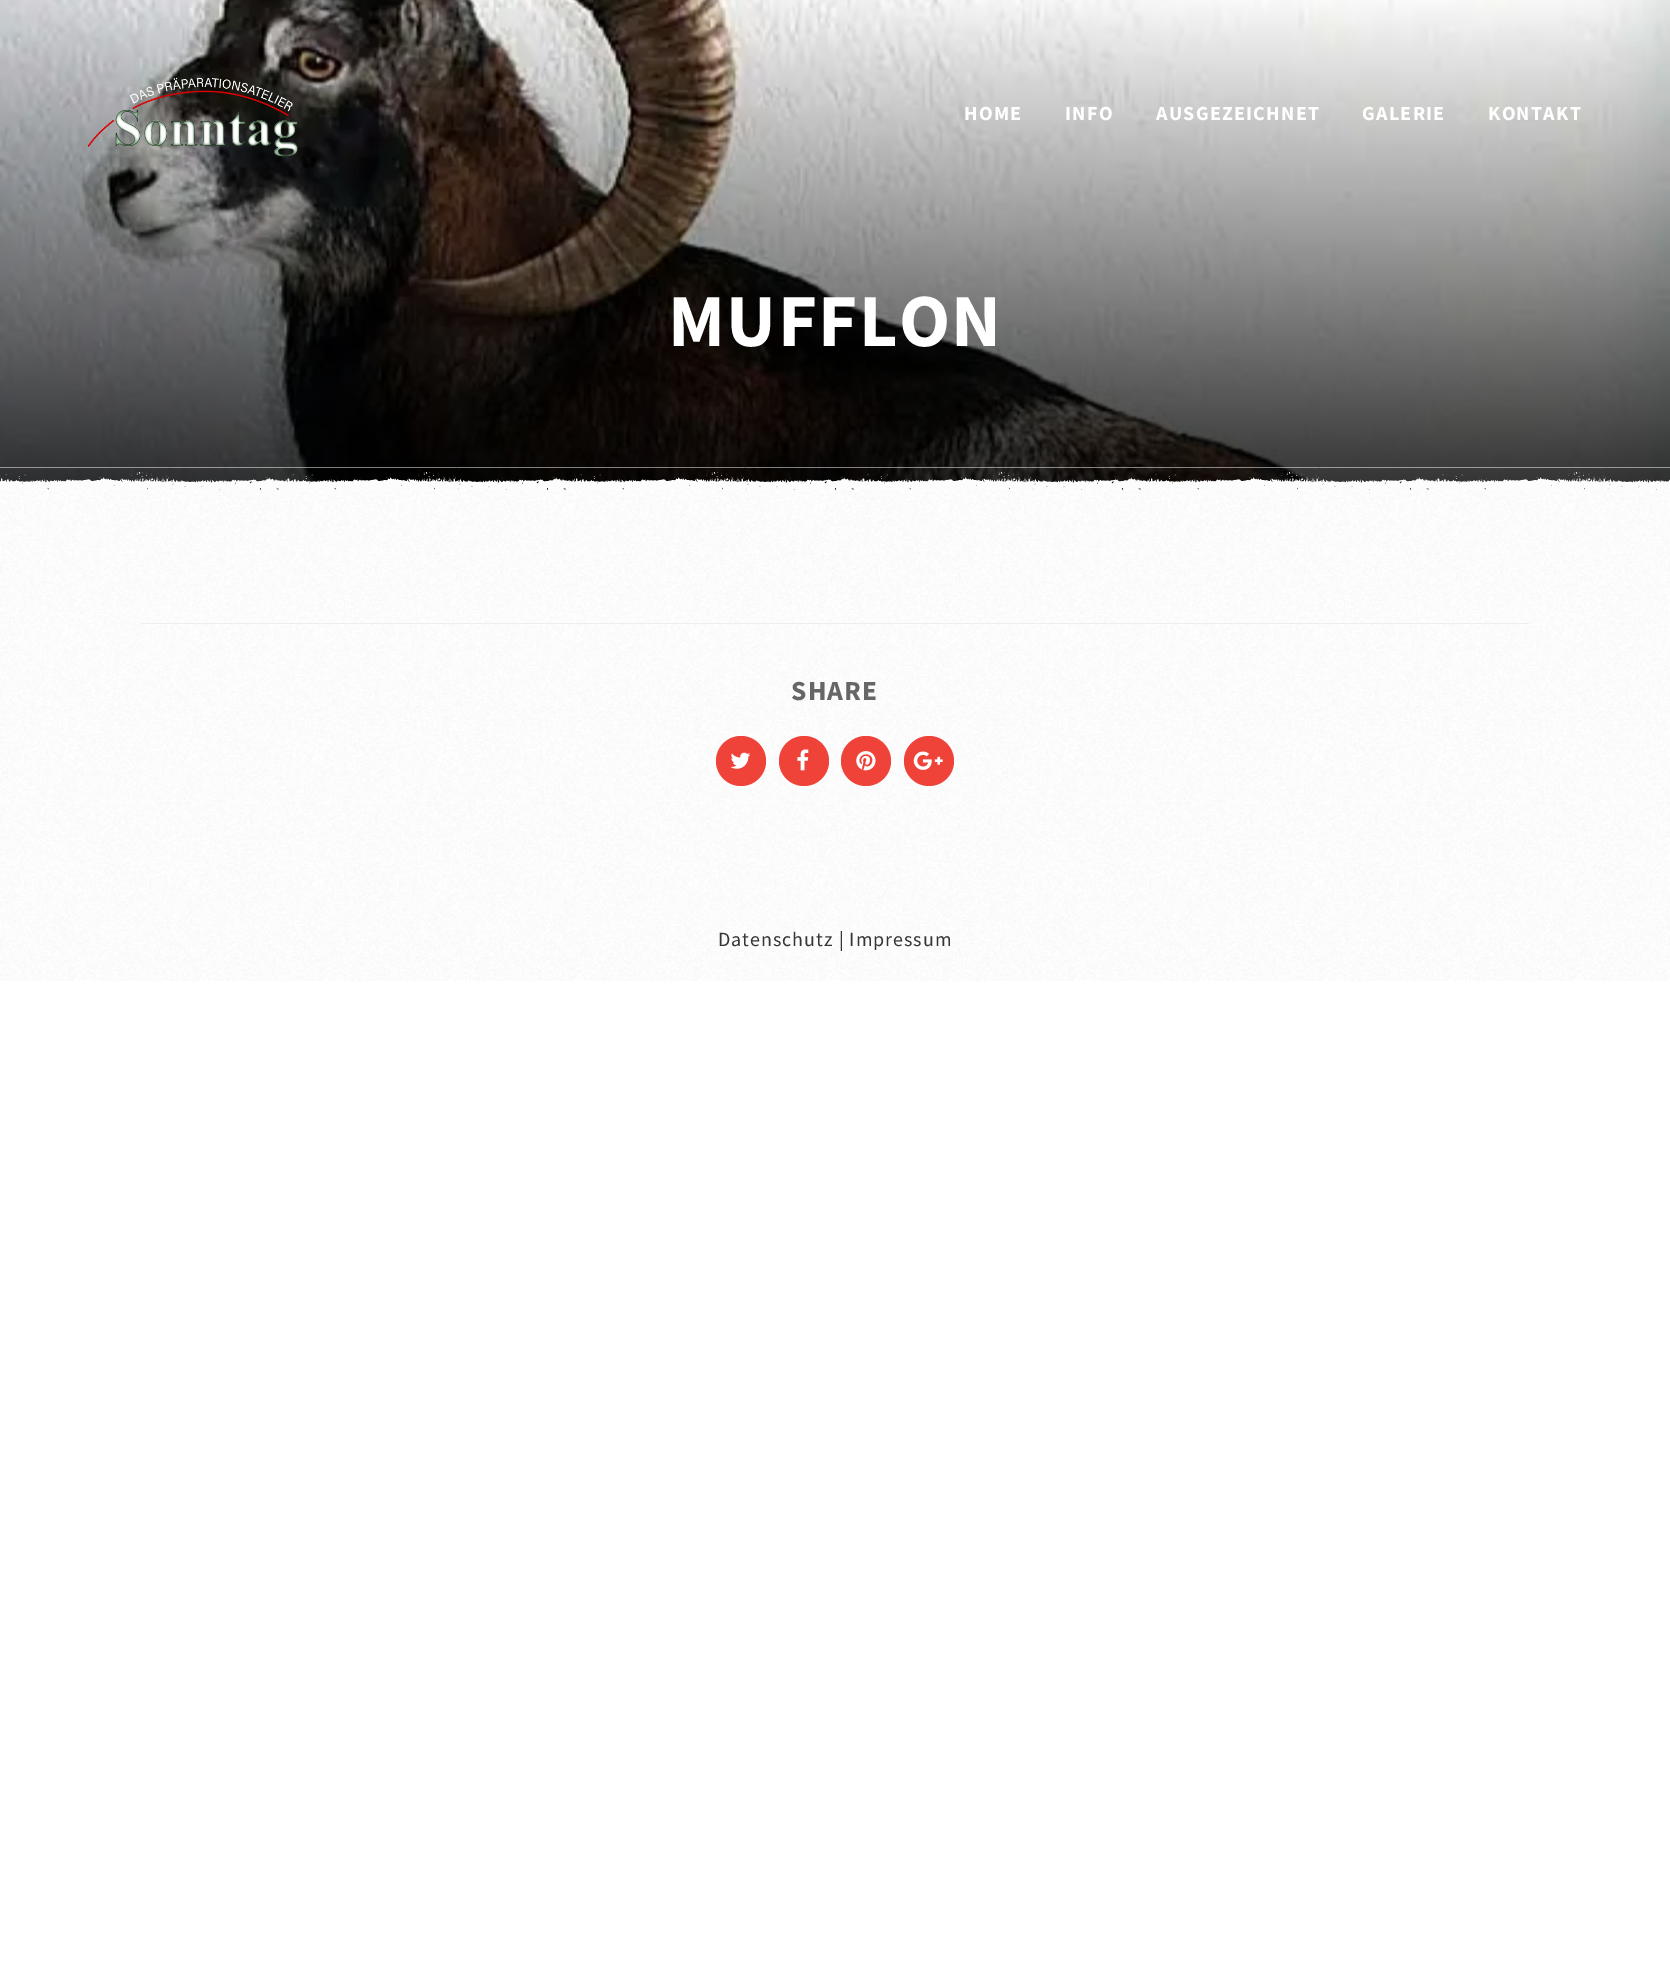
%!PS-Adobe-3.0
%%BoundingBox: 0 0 1670 1970
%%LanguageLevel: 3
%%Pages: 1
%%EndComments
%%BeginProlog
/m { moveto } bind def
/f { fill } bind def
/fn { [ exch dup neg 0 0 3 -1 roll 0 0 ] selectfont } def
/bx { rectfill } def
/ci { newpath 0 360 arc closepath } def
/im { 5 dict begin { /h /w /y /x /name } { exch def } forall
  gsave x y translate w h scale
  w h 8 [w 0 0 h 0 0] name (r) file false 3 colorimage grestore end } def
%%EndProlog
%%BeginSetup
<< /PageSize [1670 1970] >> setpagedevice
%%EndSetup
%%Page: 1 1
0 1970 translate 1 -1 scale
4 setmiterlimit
1 setgray
0 0 1670 1970 bx
(image0.raw) 0 490 1670 491 im
(image2.raw) 0 0 1670 490 im
(image1.raw) 87 77 211 80 im
/SourceSansPro-Bold 20 fn
964 120 m 1.25 0 (HOME) ashow
1065 120 m 1.25 0 (INFO) ashow
1156 120 m 1.25 0 (AUSGEZEICHNET) ashow
1362 120 m 1.25 0 (GALERIE) ashow
1488 120 m 1.25 0 (KONTAKT) ashow
/SourceSansPro-Bold 75 fn
668 346 m 1.25 0 (MUFFLON) ashow
(image3.raw) 0 467 1670 23 im
0.933 setgray
141 623 1388 1 bx
/SourceSansPro-Bold 27.5 fn
0.4 setgray
791 700 m 1.25 0 (SHARE) ashow
0.937 0.259 0.224 setrgbcolor
741 761 25 ci f
(image4.raw) 730 752 21 17 im
804 761 25 ci f
(image5.raw) 797 749 12 22 im
866 761 25 ci f
(image6.raw) 856 751 20 20 im
929 761 25 ci f
(image7.raw) 913 751 30 19 im
/SourceSansPro-Regular 20 fn
0.208 setgray
718 946 m 1 0 (Datenschutz | Impressum) ashow
showpage
%%EOF
